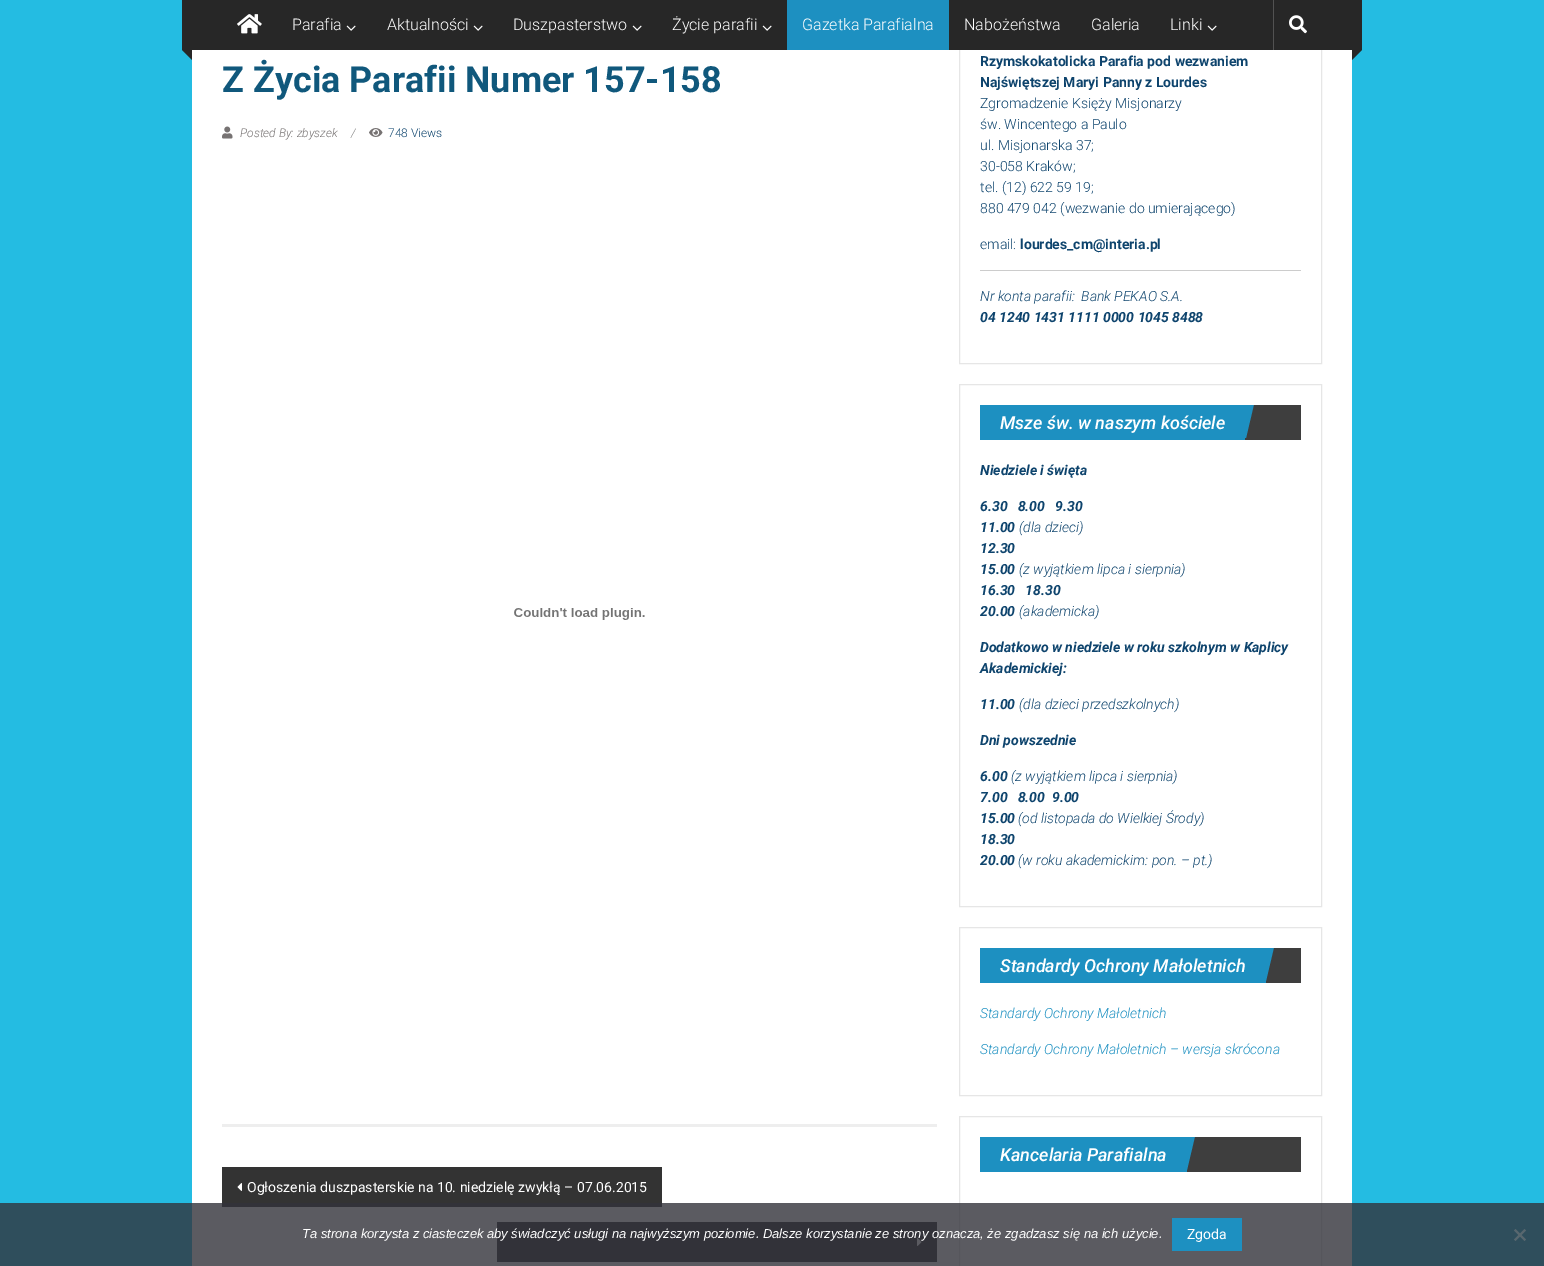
%!PS-Adobe-3.0
%%BoundingBox: 0 0 1544 1266
%%LanguageLevel: 3
%%Pages: 1
%%EndComments
%%BeginProlog
/m { moveto } bind def
/l { lineto } bind def
/h { closepath } bind def
/f { fill } bind def
/q { gsave } bind def
/Q { grestore } bind def
/fn { [ exch dup neg 0 0 3 -1 roll 0 0 ] selectfont } def
/tx { moveto show } def
/bx { rectfill } def
/al { dup .setfillconstantalpha .setstrokeconstantalpha } def
/im { 5 dict begin { /h /w /y /x /name } { exch def } forall
  gsave x y translate w h scale
  w h 8 [w 0 0 h 0 0] name (r) file false 3 colorimage grestore end } def
%%EndProlog
%%BeginSetup
<< /PageSize [1544 1266] /PageUsesTransparency true >> setpagedevice
%%EndSetup
%%Page: 1 1
0 .pushpdf14devicefilter
0 1266 translate 1 -1 scale
4 setmiterlimit
0.141 0.737 0.886 setrgbcolor
0 0 1544 1266 bx
1 setgray
192 50 1160 1216 bx
0.902 setgray
959.5 -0.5 362 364 rectstroke
0.153 setgray
182 0 1170 50 bx
(image0.raw) 237 14 25 20 im
/Roboto-Light 16 fn
1 setgray
(Parafia) 292 30 tx
(image1.raw) 346 25 10 6 im
(Aktualności) 387 30 tx
(image1.raw) 473 25 10 6 im
(Duszpasterstwo) 513 30 tx
(image1.raw) 632 25 10 6 im
(Życie parafii) 672 30 tx
(image1.raw) 762 25 10 6 im
0.114 0.565 0.757 setrgbcolor
787 0 162 50 bx
1 setgray
(Gazetka Parafialna) 802 30 tx
(Nabożeństwa) 964 30 tx
(Galeria) 1091 30 tx
(Linki) 1170 30 tx
(image1.raw) 1207 25 10 6 im
0.322 setgray
1273 0 1 50 bx
(image2.raw) 1289 15 18 19 im
0.153 setgray
192 40 m 192 60 l 182 50 l h f
1352 60 m 1352 40 l 1362 50 l h f
1352 0 10 50 bx
0.933 setgray
222 1124 715 3 bx
/Roboto-Bold 36 fn
0.063 0.345 0.486 setrgbcolor
(Z Życia Parafii Numer 157-158) 222 92 tx
(image3.raw) 222 126 11 13 im
/Roboto-LightItalic 12 fn
0.463 0.447 0.447 setrgbcolor
(Posted By: zbyszek) 240 137 tx
0.502 setgray
(/) 351 137 tx
(image4.raw) 369 128 14 9 im
/Roboto-Light 12 fn
0.055 0.267 0.427 setrgbcolor
(748 Views) 388 137 tx
(image5.raw) 514 608 131 12 im
0.2 setgray
222 1167 440 40 bx
(image6.raw) 237 1183 5 8 im
/Roboto-Regular 14 fn
1 setgray
(Ogłoszenia duszpasterskie na 10. niedzielę zwykłą – 07.06.2015) 247 1192 tx
0.2 setgray
497 1222 440 40 bx
(image7.raw) 917 1238 5 8 im
/Roboto-Bold 14 fn
0.055 0.267 0.427 setrgbcolor
(Rzymskokatolicka Parafia pod wezwaniem) 980 66 tx
(Najświętszej Maryi Panny z Lourdes) 980 87 tx
/Roboto-Light 14 fn
(Zgromadzenie Księży Misjonarzy) 980 108 tx
(św. Wincentego a Paulo) 980 129 tx
(ul. Misjonarska 37;) 980 150 tx
(30-058 Kraków;) 980 171 tx
(tel. \(12\) 622 59 19;) 980 192 tx
(880 479 042 \(wezwanie do umierającego\)) 980 213 tx
(email:) 980 249 tx
/Roboto-Bold 14 fn
(lourdes_cm@interia.pl) 1020 249 tx
0.8 setgray
980 270 321 1 bx
/Roboto-LightItalic 14 fn
0.055 0.267 0.427 setrgbcolor
(Nr konta parafii:  Bank PEKAO S.A.) 980 301 tx
/Roboto-BoldItalic 14 fn
(04 1240 1431 1111 0000 1045 8488) 980 322 tx
0.902 setgray
959.5 384.5 362 522 rectstroke
0.243 setgray
1245 405 56 35 bx
0.114 0.565 0.757 setrgbcolor
980 405 265 35 bx
q
980 405 321 35 rectclip
1254 404 m 1246 438 l 1212 430 l 1220 396 l h f
Q
/Roboto-MediumItalic 18 fn
1 setgray
(Msze św. w naszym kościele) 1000 429 tx
/Roboto-BoldItalic 14 fn
0.055 0.267 0.427 setrgbcolor
(Niedziele i święta) 980 475 tx
(6.30   8.00   9.30) 980 511 tx
(11.00) 980 532 tx
/Roboto-LightItalic 14 fn
(\(dla dzieci\)) 1019 532 tx
/Roboto-BoldItalic 14 fn
(12.30) 980 553 tx
(15.00) 980 574 tx
/Roboto-LightItalic 14 fn
(\(z wyjątkiem lipca i sierpnia\)) 1019 574 tx
/Roboto-BoldItalic 14 fn
(16.30   18.30) 980 595 tx
(20.00) 980 616 tx
/Roboto-LightItalic 14 fn
(\(akademicka\)) 1019 616 tx
/Roboto-BoldItalic 14 fn
(Dodatkowo w niedziele w roku szkolnym w Kaplicy) 980 652 tx
(Akademickiej:) 980 673 tx
(11.00) 980 709 tx
/Roboto-LightItalic 14 fn
(\(dla dzieci przedszkolnych\)) 1019 709 tx
/Roboto-BoldItalic 14 fn
(Dni powszednie) 980 745 tx
(6.00) 980 781 tx
/Roboto-LightItalic 14 fn
(\(z wyjątkiem lipca i sierpnia\)) 1011 781 tx
/Roboto-BoldItalic 14 fn
(7.00   8.00  9.00) 980 802 tx
(15.00) 980 823 tx
/Roboto-LightItalic 14 fn
(\(od listopada do Wielkiej Środy\)) 1018 823 tx
/Roboto-BoldItalic 14 fn
(18.30) 980 844 tx
(20.00) 980 865 tx
/Roboto-LightItalic 14 fn
(\(w roku akademickim: pon. – pt.\)) 1018 865 tx
0.902 setgray
959.5 927.5 362 168 rectstroke
0.243 setgray
1266 948 35 35 bx
0.114 0.565 0.757 setrgbcolor
980 948 286 35 bx
q
980 948 321 35 rectclip
1274 947 m 1266 981 l 1232 973 l 1240 939 l h f
Q
/Roboto-MediumItalic 18 fn
1 setgray
(Standardy Ochrony Małoletnich) 1000 972 tx
/Roboto-LightItalic 14 fn
0.114 0.565 0.757 setrgbcolor
(Standardy Ochrony Małoletnich) 980 1018 tx
(Standardy Ochrony Małoletnich – wersja skrócona) 980 1054 tx
0.902 setgray
959.5 1116.5 362 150 rectstroke
0.243 setgray
1187 1137 114 35 bx
0.114 0.565 0.757 setrgbcolor
980 1137 207 35 bx
q
980 1137 321 35 rectclip
1195 1136 m 1187 1170 l 1153 1162 l 1161 1128 l h f
Q
/Roboto-MediumItalic 18 fn
1 setgray
(Kancelaria Parafialna) 1000 1161 tx
0.8 al
0.196 0.196 0.227 setrgbcolor
0 1203 1544 63 bx
/LiberationSans-Italic 13 fn
1 al
1 setgray
(Ta strona korzysta z ciasteczek aby świadczyć usługi na najwyższym poziomie. Dalsze korzystanie ze strony oznacza, że zgadzasz się na ich użycie.) 302 1238 tx
0.114 0.565 0.757 setrgbcolor
1172 1218 70 33 bx
/Roboto-Regular 14 fn
1 setgray
(Zgoda) 1187 1239 tx
0.345 0.404 0.431 setrgbcolor
1524.5 1229 m 1526 1230.5 l 1515.5 1241 l 1514 1239.5 l h f
1514 1230.5 m 1515.5 1229 l 1526 1239.5 l 1524.5 1241 l h f
.poppdf14devicefilter showpage
%%EOF
